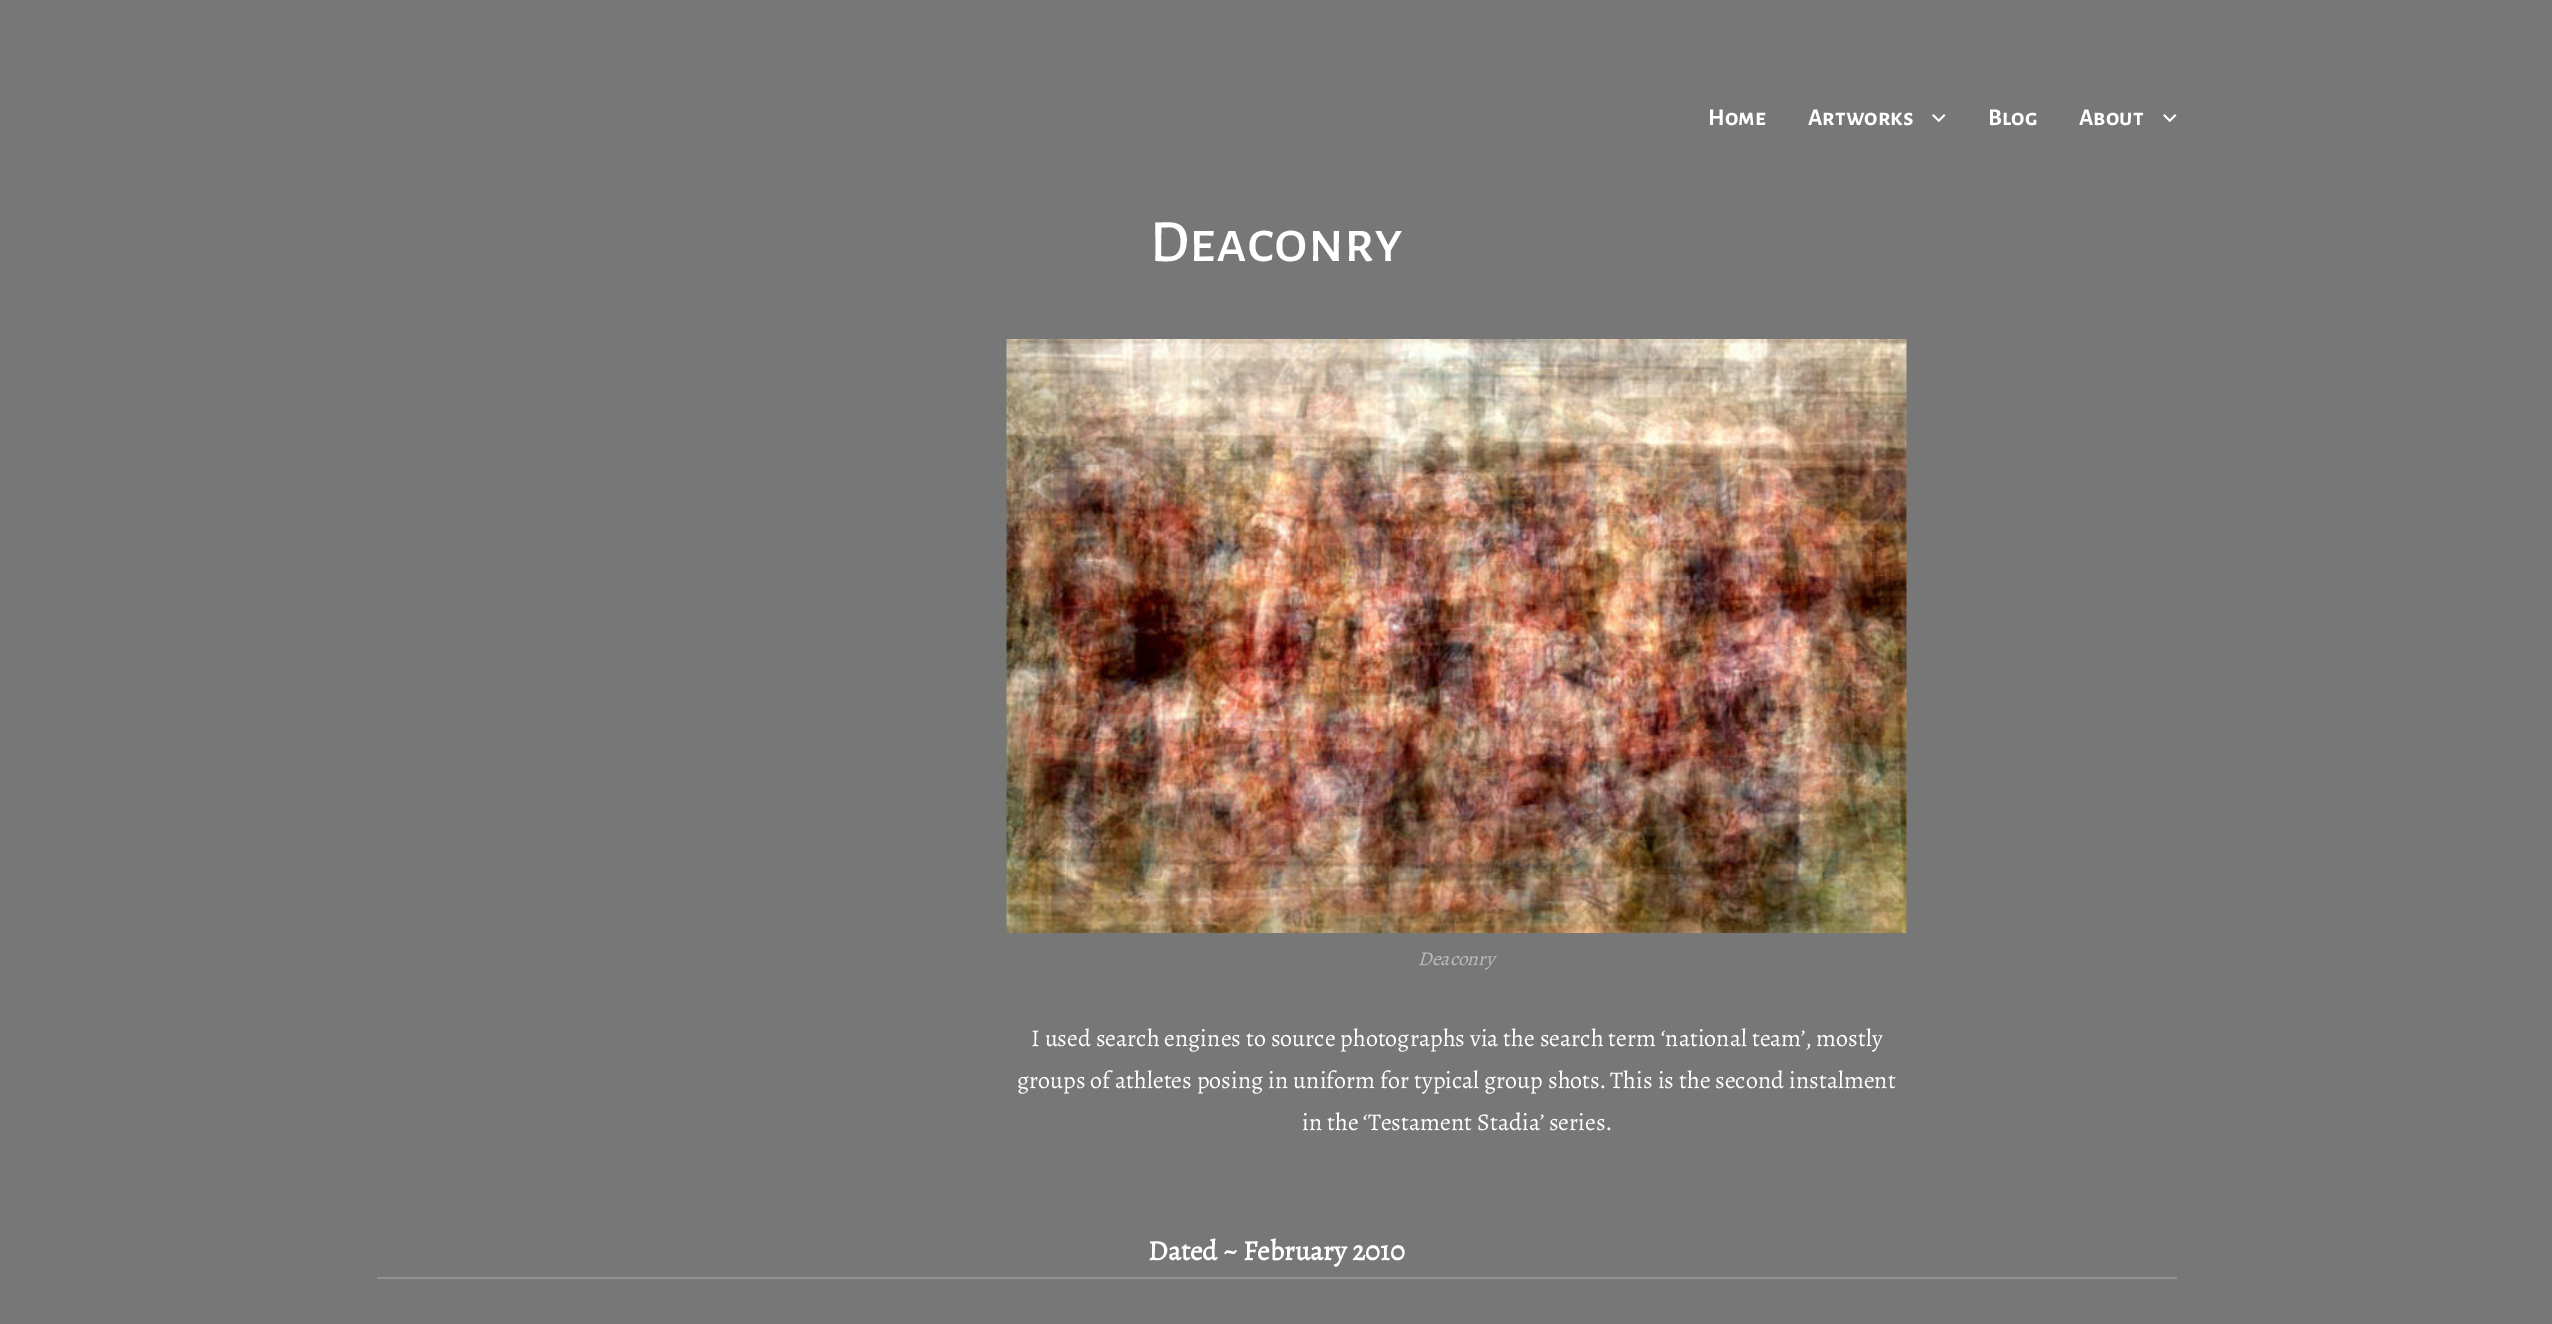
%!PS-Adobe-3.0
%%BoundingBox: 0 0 2552 1324
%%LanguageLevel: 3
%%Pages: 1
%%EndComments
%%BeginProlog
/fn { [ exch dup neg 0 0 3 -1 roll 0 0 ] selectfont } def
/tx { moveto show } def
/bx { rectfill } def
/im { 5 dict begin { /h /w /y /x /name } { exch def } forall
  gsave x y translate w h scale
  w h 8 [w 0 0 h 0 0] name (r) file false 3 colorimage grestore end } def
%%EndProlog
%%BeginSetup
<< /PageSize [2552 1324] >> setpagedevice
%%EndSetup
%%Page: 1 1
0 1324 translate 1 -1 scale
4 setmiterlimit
0.467 setgray
0 0 2552 1324 bx
/AlegreyaSansSC-Bold 24 fn
1 setgray
(Home) 1708 125 tx
(Artworks) 1808 125 tx
(image0.raw) 1932 114 14 9 im
(Blog) 1988 125 tx
(About) 2079 125 tx
(image0.raw) 2163 114 14 9 im
/AlegreyaSansSC-Medium 60 fn
(Deaconry) 1150 261 tx
(image1.raw) 1006 339 901 594 im
/Alegreya-Italic 19.5 fn
0.737 setgray
(Deaconry) 1418 965 tx
/Alegreya-Regular 24 fn
1 setgray
(I used search engines to source photographs via the search term ‘national team’, mostly) 1031 1046 tx
(groups of athletes posing in uniform for typical group shots. This is the second instalment) 1017 1088 tx
(in the ‘Testament Stadia’ series.) 1302 1130 tx
/Alegreya-Bold 28 fn
(Dated ~ February 2010) 1148 1260 tx
0.573 setgray
377 1277 1800 2 bx
showpage
%%EOF
